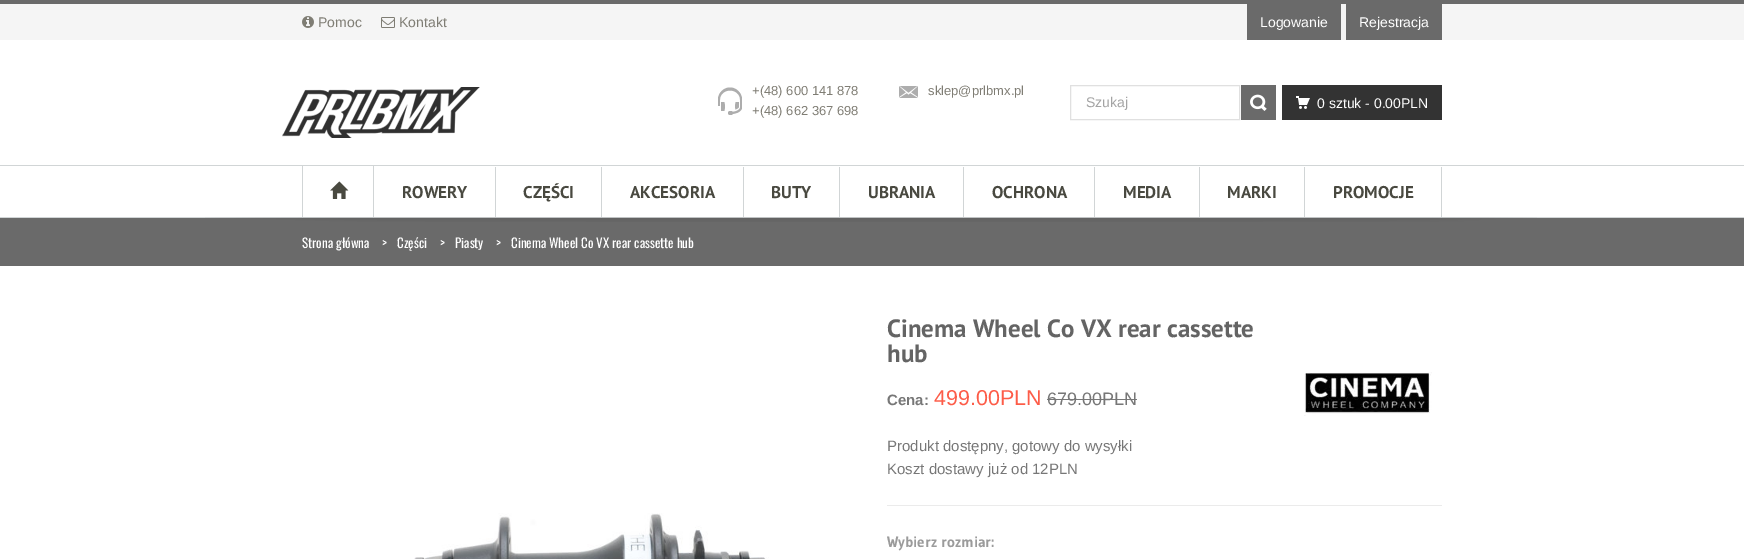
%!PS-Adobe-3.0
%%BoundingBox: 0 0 1744 559
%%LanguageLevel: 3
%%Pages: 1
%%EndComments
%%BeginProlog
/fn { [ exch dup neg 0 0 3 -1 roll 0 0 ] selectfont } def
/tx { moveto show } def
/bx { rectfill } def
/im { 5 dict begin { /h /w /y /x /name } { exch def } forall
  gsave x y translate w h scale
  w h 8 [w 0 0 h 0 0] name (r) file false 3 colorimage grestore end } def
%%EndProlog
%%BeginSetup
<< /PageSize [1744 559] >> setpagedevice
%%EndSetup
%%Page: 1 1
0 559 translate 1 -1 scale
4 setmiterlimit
1 setgray
0 0 1744 559 bx
0.961 setgray
0 4 1744 36 bx
0.416 setgray
0 0 1744 4 bx
(image0.raw) 302 16 12 12 im
/LiberationSans-Regular 14 fn
0.498 0.49 0.455 setrgbcolor
(Pomoc) 318 27 tx
(image1.raw) 381 17 14 11 im
(Kontakt) 399 27 tx
0.416 setgray
1247 4 94 36 bx
1 setgray
(Logowanie) 1260 27 tx
0.416 setgray
1346 4 96 36 bx
1 setgray
(Rejestracja) 1359 27 tx
(image2.raw) 282 87 198 51 im
(image3.raw) 718 87 24 28 im
/LiberationSans-Regular 13 fn
0.498 0.49 0.455 setrgbcolor
(+\(48\) 600 141 878) 752 95 tx
(+\(48\) 662 367 698) 752 115 tx
(image4.raw) 899 86 19 12 im
(sklep@prlbmx.pl) 928 95 tx
0.878 setgray
1070.5 85.5 169 34 rectstroke
/LiberationSans-Regular 14 fn
0.643 setgray
(Szukaj) 1086 107 tx
0.416 setgray
1241 85 35 35 bx
(image5.raw) 1250 94 17 17 im
0.2 setgray
1282 85 160 35 bx
(image6.raw) 1296 96 14 13 im
1 setgray
(0 sztuk - 0.00PLN) 1317 108 tx
0.82 0.835 0.839 setrgbcolor
0 165 1744 1 bx
0 217 1744 1 bx
373 166 1 51 bx
302 166 1 51 bx
(image7.raw) 330 181 19 18 im
495 167 1 50 bx
/PTSans-Bold 17 fn
0.286 0.286 0.251 setrgbcolor
(ROWERY) 402 198 tx
0.82 0.835 0.839 setrgbcolor
601 167 1 50 bx
0.286 0.286 0.251 setrgbcolor
(CZĘŚCI) 523 198 tx
0.82 0.835 0.839 setrgbcolor
743 167 1 50 bx
0.286 0.286 0.251 setrgbcolor
(AKCESORIA) 630 198 tx
0.82 0.835 0.839 setrgbcolor
839 167 1 50 bx
0.286 0.286 0.251 setrgbcolor
(BUTY) 771 198 tx
0.82 0.835 0.839 setrgbcolor
963 167 1 50 bx
0.286 0.286 0.251 setrgbcolor
(UBRANIA) 868 198 tx
0.82 0.835 0.839 setrgbcolor
1094 167 1 50 bx
0.286 0.286 0.251 setrgbcolor
(OCHRONA) 992 198 tx
0.82 0.835 0.839 setrgbcolor
1199 167 1 50 bx
0.286 0.286 0.251 setrgbcolor
(MEDIA) 1123 198 tx
0.82 0.835 0.839 setrgbcolor
1304 167 1 50 bx
0.286 0.286 0.251 setrgbcolor
(MARKI) 1227 198 tx
0.82 0.835 0.839 setrgbcolor
1441 167 1 50 bx
0.286 0.286 0.251 setrgbcolor
(PROMOCJE) 1333 198 tx
0.416 setgray
0 218 1744 48 bx
(image8.raw) 205 217 1332 5 im
/Oswald-Regular 13 fn
1 setgray
(Strona główna) 302 248 tx
(>) 382 248 tx
(Części) 397 248 tx
(>) 440 248 tx
(Piasty) 455 248 tx
(>) 496 248 tx
(Cinema Wheel Co VX rear cassette hub) 511 248 tx
(image9.raw) 414 513 355 46 im
/PTSans-Bold 25 fn
0.392 setgray
(Cinema Wheel Co VX rear cassette) 887 337 tx
(hub) 887 362 tx
/LiberationSans-Bold 15 fn
0.467 setgray
(Cena:) 887 405 tx
/LiberationSans-Regular 21.5 fn
0.992 0.361 0.282 setrgbcolor
(499.00PLN) 934 405 tx
/LiberationSans-Regular 18 fn
0.467 setgray
(679.00PLN) 1047 405 tx
1047 399 90 1 bx
/LiberationSans-Regular 15 fn
(Produkt dostępny, gotowy do wysyłki) 887 451 tx
(Koszt dostawy już od 12PLN) 887 474 tx
(image10.raw) 1304 372 128 44 im
0.922 setgray
887 505 555 1 bx
/Gudea-Bold 15 fn
0.608 setgray
(Wybierz rozmiar:) 887 547 tx
showpage
%%EOF
